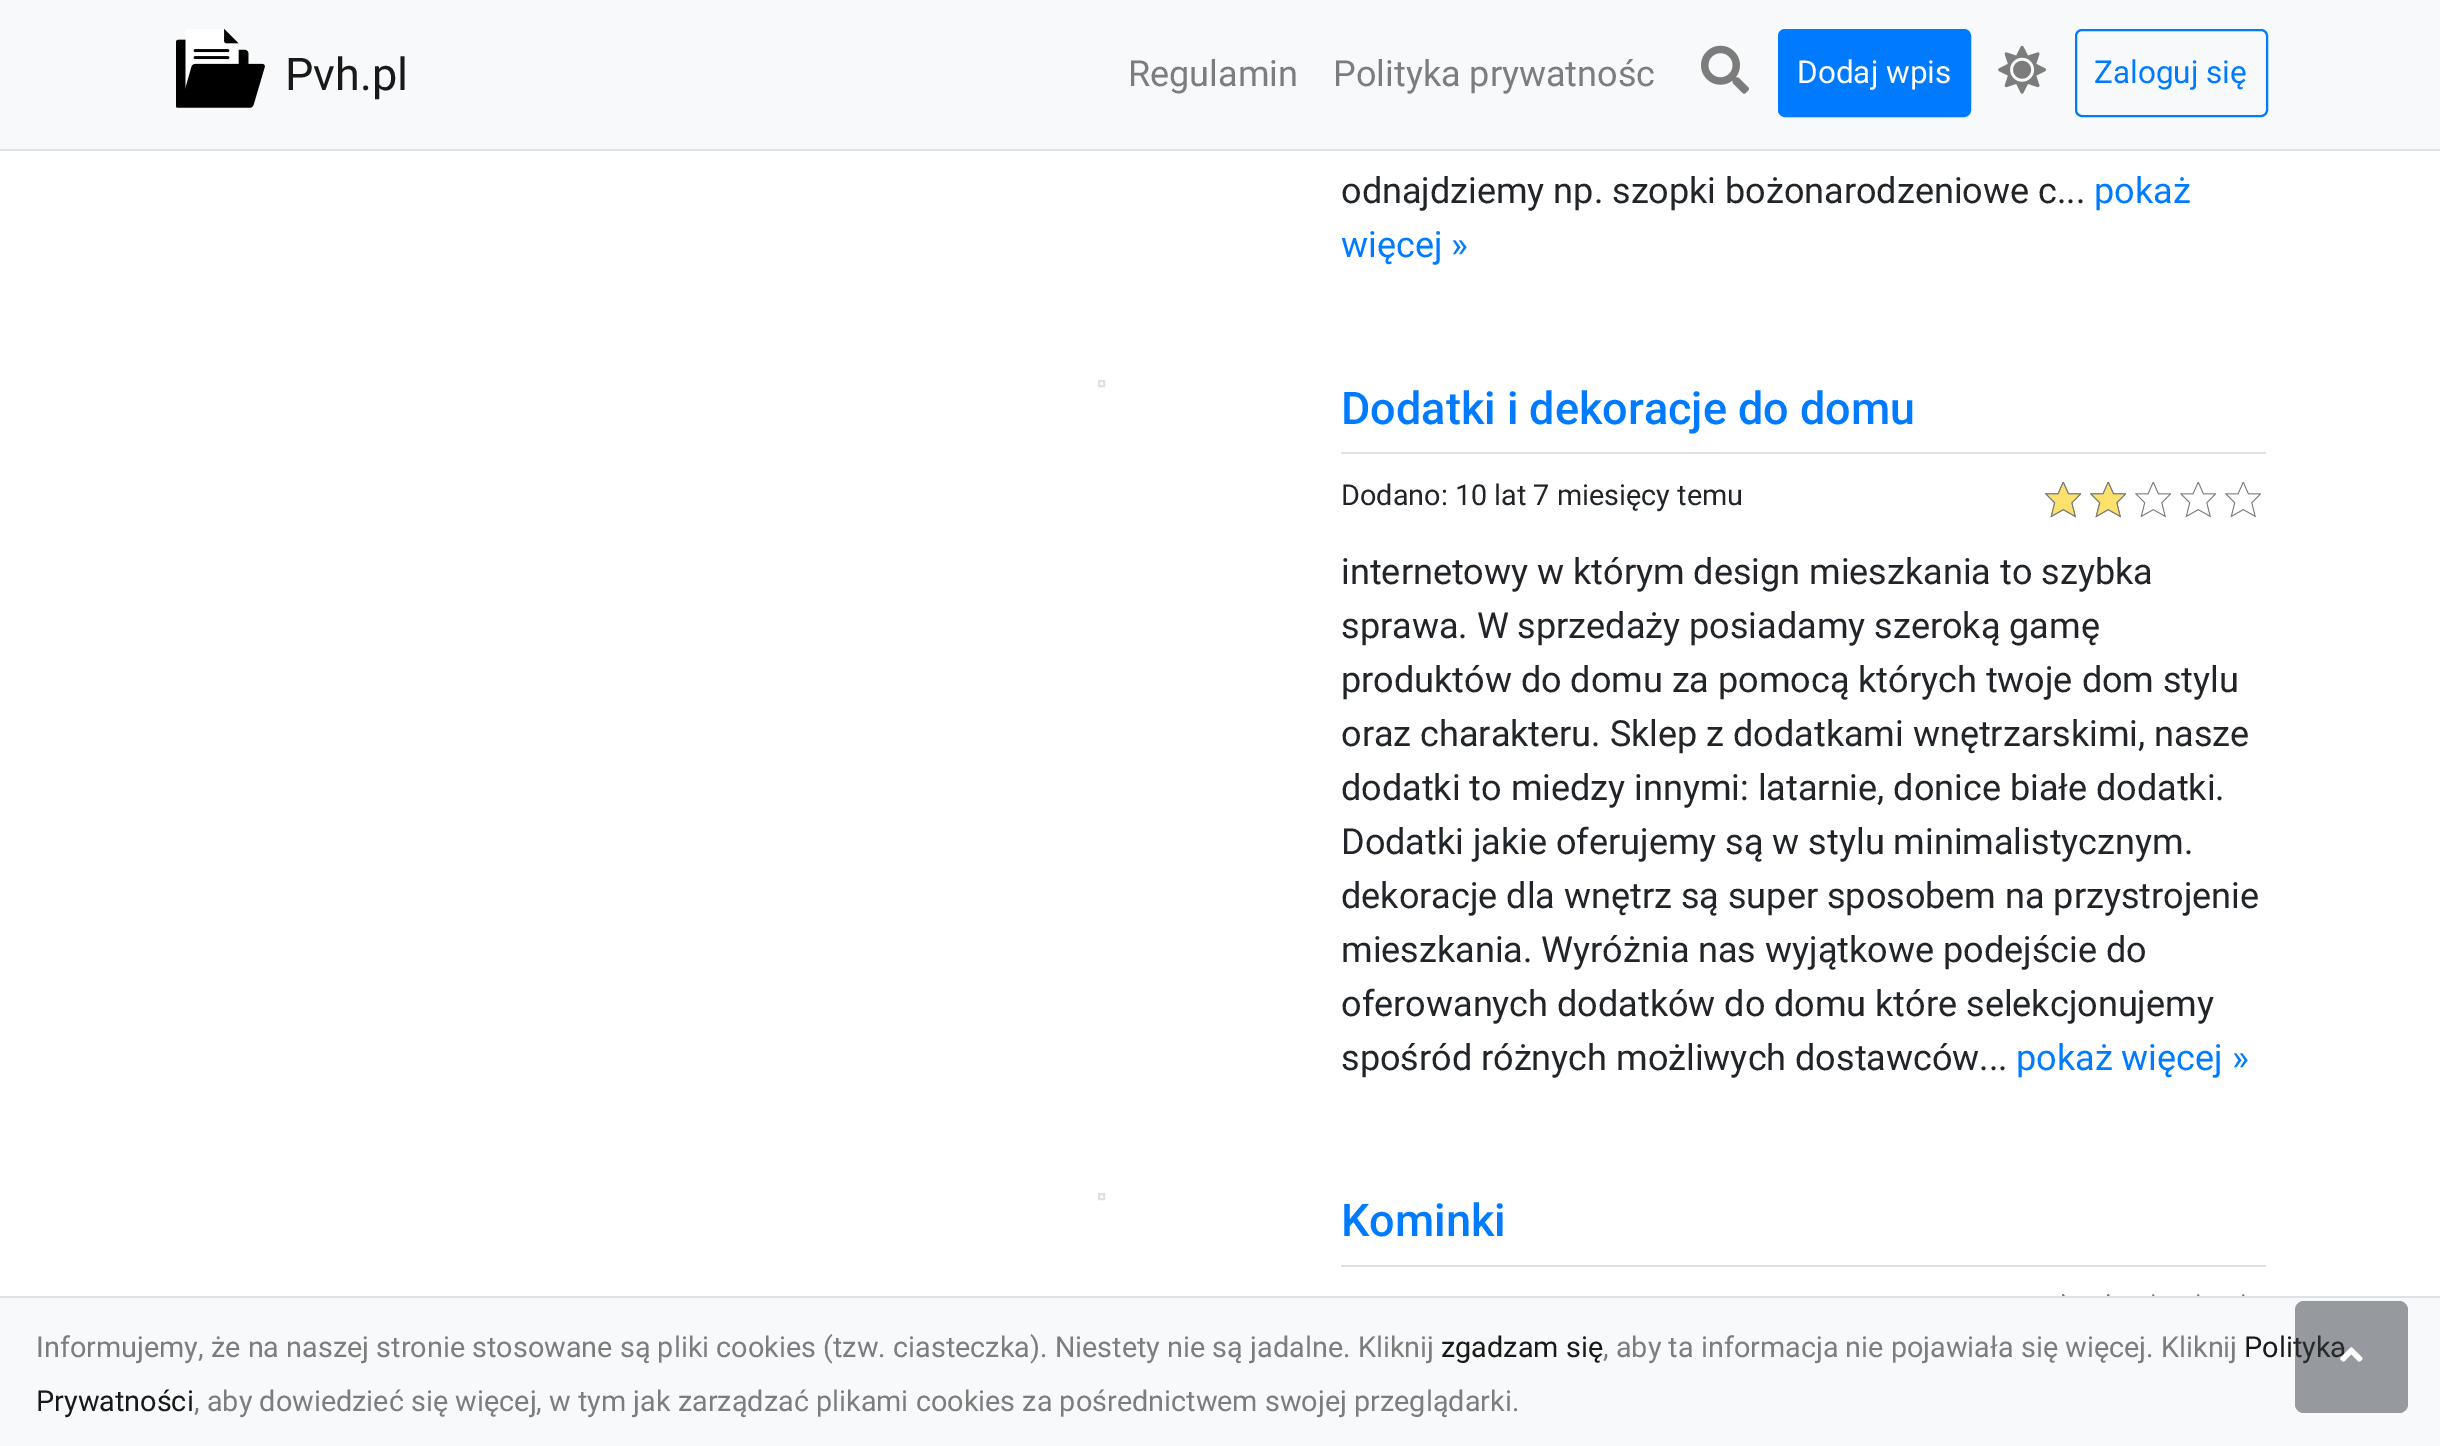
%!PS-Adobe-3.0
%%BoundingBox: 0 0 2440 1446
%%LanguageLevel: 3
%%Pages: 1
%%EndComments
%%BeginProlog
/f { fill } bind def
/S { stroke } bind def
/q { gsave } bind def
/Q { grestore } bind def
/w { setlinewidth } bind def
/fn { [ exch dup neg 0 0 3 -1 roll 0 0 ] selectfont } def
/tx { moveto show } def
/bx { rectfill } def
/al { dup .setfillconstantalpha .setstrokeconstantalpha } def
/rr { 5 dict begin { /r /h /w /y /x } { exch def } forall
  x r add y moveto x w add y 2 copy h add r arct x w add y h add x 1 index r arct
  x y h add x y r arct x y 2 copy exch w add exch r arct closepath end } def
/im { 5 dict begin { /h /w /y /x /name } { exch def } forall
  gsave x y translate w h scale
  w h 8 [w 0 0 h 0 0] name (r) file false 3 colorimage grestore end } def
%%EndProlog
%%BeginSetup
<< /PageSize [2440 1446] /PageUsesTransparency true >> setpagedevice
%%EndSetup
%%Page: 1 1
0 .pushpdf14devicefilter
0 1446 translate 1 -1 scale
4 setmiterlimit
1 setgray
0 0 2440 1446 bx
0.973 0.976 0.98 setrgbcolor
0 0 2440 149 bx
0.871 0.886 0.902 setrgbcolor
0 149 2440 2 bx
(image0.raw) 176 29 89 79 im
/Roboto-Regular 45 fn
0.098 setgray
(Pvh.pl) 285 90 tx
/Roboto-Regular 36 fn
0.486 0.49 0.49 setrgbcolor
(Regulamin) 1128 86 tx
(Polityka prywatnośc) 1333 86 tx
(image1.raw) 1701 45 48 49 im
0 0.482 1 setrgbcolor
1779 30 191 86 6 rr q f Q
2 w
S
/Roboto-Regular 31.5 fn
1 setgray
(Dodaj wpis) 1797 83 tx
(image2.raw) 1998 45 48 49 im
0 0.482 1 setrgbcolor
2076 30 191 86 6 rr S
(Zaloguj się) 2094 83 tx
/Roboto-Regular 36 fn
0.129 0.145 0.161 setrgbcolor
(odnajdziemy np. szopki bożonarodzeniowe c...) 1341 203 tx
0 0.482 1 setrgbcolor
(pokaż) 2094 203 tx
(więcej ») 1341 257 tx
0.871 0.886 0.902 setrgbcolor
1099 381 5 5 rectstroke
1341 452 925 2 bx
/Roboto-Medium 45 fn
0 0.482 1 setrgbcolor
(Dodatki i dekoracje do domu) 1341 424 tx
/Roboto-Regular 28.8 fn
0.129 0.145 0.161 setrgbcolor
(Dodano: 10 lat 7 miesięcy temu) 1341 505 tx
(image3.raw) 2045 482 36 36 im
(image3.raw) 2090 482 36 36 im
(image3.raw) 2135 482 36 36 im
(image3.raw) 2180 482 36 36 im
(image3.raw) 2225 482 36 36 im
(image4.raw) 2045 482 36 36 im
(image4.raw) 2090 482 36 36 im
/Roboto-Regular 36 fn
(internetowy w którym design mieszkania to szybka) 1341 584 tx
(sprawa. W sprzedaży posiadamy szeroką gamę) 1341 638 tx
(produktów do domu za pomocą których twoje dom stylu) 1341 692 tx
(oraz charakteru. Sklep z dodatkami wnętrzarskimi, nasze) 1341 746 tx
(dodatki to miedzy innymi: latarnie, donice białe dodatki.) 1341 800 tx
(Dodatki jakie oferujemy są w stylu minimalistycznym.) 1341 854 tx
(dekoracje dla wnętrz są super sposobem na przystrojenie) 1341 908 tx
(mieszkania. Wyróżnia nas wyjątkowe podejście do) 1341 962 tx
(oferowanych dodatków do domu które selekcjonujemy) 1341 1016 tx
(spośród różnych możliwych dostawców...) 1341 1070 tx
0 0.482 1 setrgbcolor
(pokaż więcej ») 2016 1070 tx
0.871 0.886 0.902 setrgbcolor
1099 1194 5 5 rectstroke
1341 1265 925 2 bx
/Roboto-Medium 45 fn
0 0.482 1 setrgbcolor
(Kominki) 1341 1236 tx
(image5.raw) 2062 1294 3 2 im
(image5.raw) 2107 1294 3 2 im
(image5.raw) 2152 1294 3 2 im
(image5.raw) 2197 1294 3 2 im
(image5.raw) 2242 1294 3 2 im
(image6.raw) 2062 1294 3 2 im
(image6.raw) 2107 1294 3 2 im
0.973 0.976 0.98 setrgbcolor
0 1298 2440 148 bx
0.871 0.886 0.902 setrgbcolor
0 1296 2440 2 bx
/Roboto-Regular 28.8 fn
0.486 0.49 0.49 setrgbcolor
(Informujemy, że na naszej stronie stosowane są pliki cookies \(tzw. ciasteczka\). Niestety nie są jadalne. Kliknij) 36 1357 tx
0.098 setgray
(zgadzam się) 1441 1357 tx
0.486 0.49 0.49 setrgbcolor
(, aby ta informacja nie pojawiała się więcej. Kliknij) 1603 1357 tx
0.098 setgray
(Polityka) 2244 1357 tx
(Prywatności) 36 1411 tx
0.486 0.49 0.49 setrgbcolor
(, aby dowiedzieć się więcej, w tym jak zarządzać plikami cookies za pośrednictwem swojej przeglądarki.) 194 1411 tx
0.5 al
0.204 0.227 0.251 setrgbcolor
2295 1301 113 112 9 rr f
1 al
(image7.raw) 2340 1347 23 15 im
.poppdf14devicefilter showpage
%%EOF
